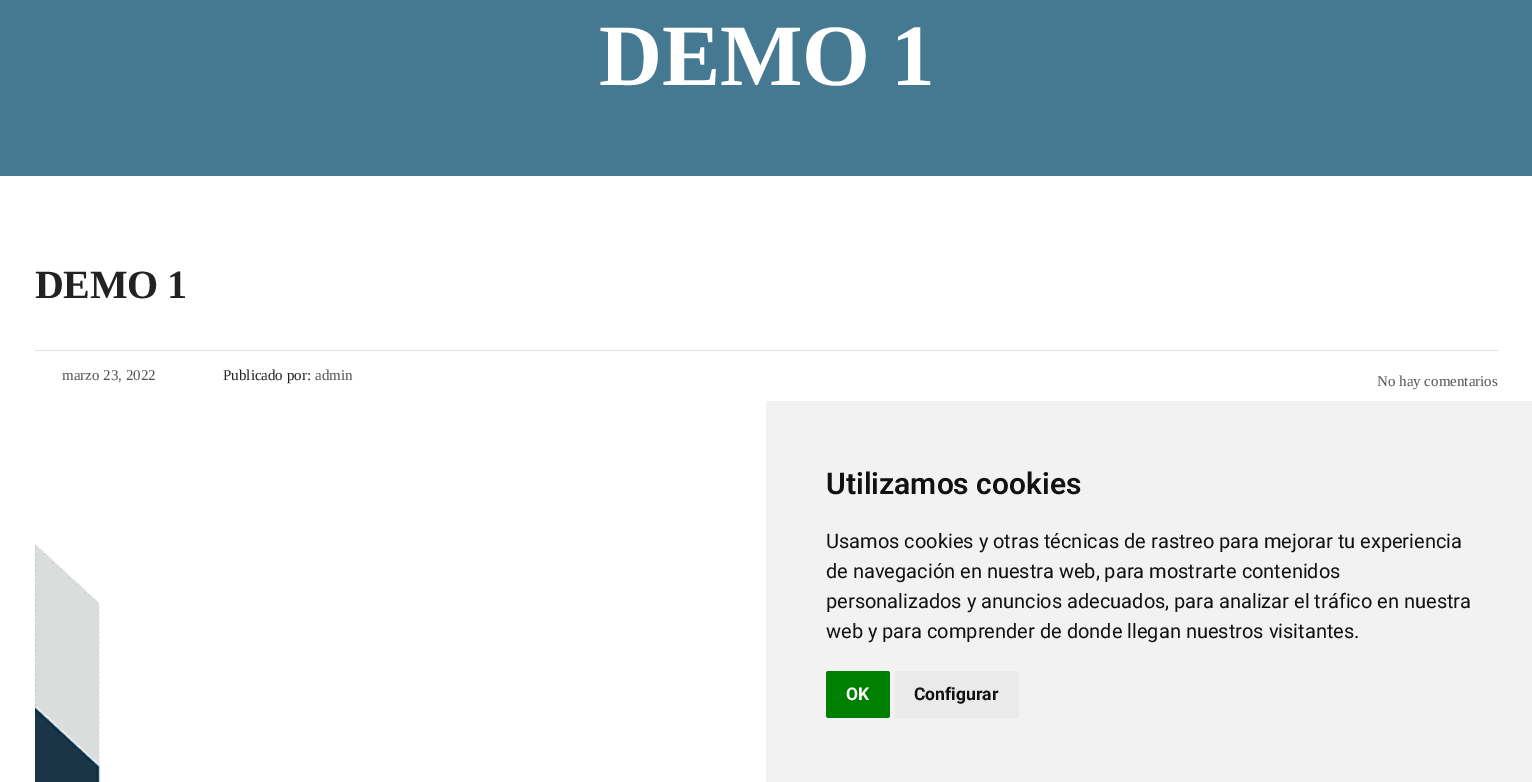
%!PS-Adobe-3.0
%%BoundingBox: 0 0 1532 782
%%LanguageLevel: 3
%%Pages: 1
%%EndComments
%%BeginProlog
/m { moveto } bind def
/f { fill } bind def
/fn { [ exch dup neg 0 0 3 -1 roll 0 0 ] selectfont } def
/tx { moveto show } def
/bx { rectfill } def
/rr { 5 dict begin { /r /h /w /y /x } { exch def } forall
  x r add y moveto x w add y 2 copy h add r arct x w add y h add x 1 index r arct
  x y h add x y r arct x y 2 copy exch w add exch r arct closepath end } def
/im { 5 dict begin { /h /w /y /x /name } { exch def } forall
  gsave x y translate w h scale
  w h 8 [w 0 0 h 0 0] name (r) file false 3 colorimage grestore end } def
%%EndProlog
%%BeginSetup
<< /PageSize [1532 782] >> setpagedevice
%%EndSetup
%%Page: 1 1
0 782 translate 1 -1 scale
4 setmiterlimit
1 setgray
0 0 1532 782 bx
0.271 0.475 0.573 setrgbcolor
0 0 1532 176 bx
/LiberationSerif-Bold 87.5 fn
1 setgray
599 85 m -0.5 0 (DEMO 1) ashow
0.882 0.886 0.894 setrgbcolor
35 350 1463 1 bx
/LiberationSerif-Bold 40 fn
0.133 setgray
35 298 m -0.5 0 (DEMO 1) ashow
/LiberationSerif-Regular 15 fn
0.333 setgray
(marzo 23, 2022) 62 380 tx
0.133 setgray
(Publicado por:) 223 380 tx
0.333 setgray
(admin) 315 380 tx
(No hay comentarios) 1377 386 tx
(image0.raw) 35 405 731 377 im
0.949 setgray
766 401 766 381 bx
/Roboto-SemiBold 30 fn
0.067 setgray
(Utilizamos cookies) 826 494 tx
/Roboto-Regular 20 fn
(Usamos cookies y otras técnicas de rastreo para mejorar tu experiencia) 826 548 tx
(de navegación en nuestra web, para mostrarte contenidos) 826 578 tx
(personalizados y anuncios adecuados, para analizar el tráfico en nuestra) 826 608 tx
(web y para comprender de donde llegan nuestros visitantes.) 826 638 tx
0 0.502 0 setrgbcolor
826 671 64 47 2.5 rr f
/Roboto-Bold 17.5 fn
1 setgray
(OK) 846 700 tx
0.918 setgray
895 671 124 47 2.5 rr f
0.067 setgray
(Configurar) 914 700 tx
showpage
%%EOF
